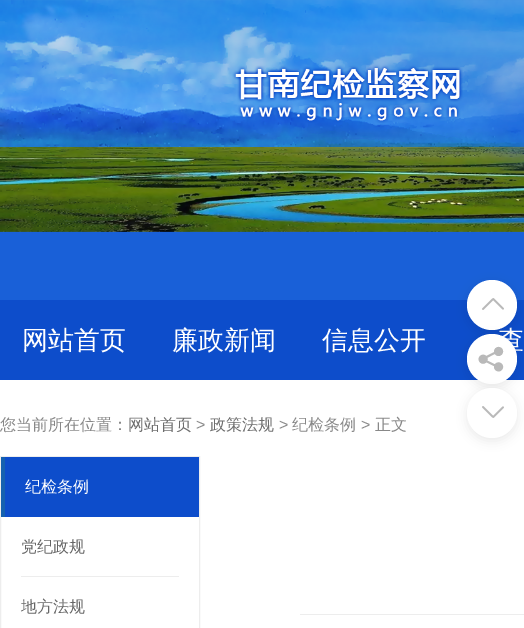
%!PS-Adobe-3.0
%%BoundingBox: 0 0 524 628
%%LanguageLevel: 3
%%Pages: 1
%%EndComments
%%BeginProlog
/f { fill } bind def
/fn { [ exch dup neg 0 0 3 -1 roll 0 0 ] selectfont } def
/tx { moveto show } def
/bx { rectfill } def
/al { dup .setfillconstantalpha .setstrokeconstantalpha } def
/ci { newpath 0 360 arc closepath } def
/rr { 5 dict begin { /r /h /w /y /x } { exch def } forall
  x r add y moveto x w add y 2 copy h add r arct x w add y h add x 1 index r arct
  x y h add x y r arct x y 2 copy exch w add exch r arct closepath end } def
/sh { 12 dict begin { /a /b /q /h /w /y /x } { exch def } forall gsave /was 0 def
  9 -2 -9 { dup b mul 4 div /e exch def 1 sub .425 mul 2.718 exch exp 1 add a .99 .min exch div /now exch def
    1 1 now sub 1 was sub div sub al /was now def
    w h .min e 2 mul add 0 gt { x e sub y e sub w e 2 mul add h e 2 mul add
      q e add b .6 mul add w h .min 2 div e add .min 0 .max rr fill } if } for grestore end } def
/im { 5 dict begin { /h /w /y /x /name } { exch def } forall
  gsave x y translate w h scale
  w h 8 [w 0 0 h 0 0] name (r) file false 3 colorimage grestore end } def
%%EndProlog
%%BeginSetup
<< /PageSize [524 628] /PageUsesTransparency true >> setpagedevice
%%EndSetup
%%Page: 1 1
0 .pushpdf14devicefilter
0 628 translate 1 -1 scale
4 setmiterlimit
1 setgray
0 0 524 628 bx
0.098 0.376 0.847 setrgbcolor
0 231 524 69 bx
(image0.raw) 0 0 524 232 im
0.051 0.302 0.796 setrgbcolor
0 300 524 80 bx
/WenQuanYiZenHei-Medium 26 fn
1 setgray
(网站首页) 22 349 tx
(廉政新闻) 172 349 tx
(信息公开) 322 349 tx
(查) 498 349 tx
0 setgray
467 283 50 50 25 5 0.08 sh
1 setgray
492 305 25 ci f
(image1.raw) 482 298 22 12 im
0 setgray
467 337 50 50 25 5 0.08 sh
1 setgray
492 359 25 ci f
(image2.raw) 478 346 26 26 im
0 setgray
467 391 50 50 25 5 0.08 sh
1 setgray
492 413 25 ci f
(image3.raw) 482 406 22 12 im
/WenQuanYiZenHei-Medium 16 fn
0.533 setgray
(您当前所在位置：) 0 430 tx
0.431 setgray
(网站首页) 128 430 tx
/LiberationSans-Regular 16 fn
0.533 setgray
(>) 196 430 tx
/WenQuanYiZenHei-Medium 16 fn
0.431 setgray
(政策法规) 210 430 tx
/LiberationSans-Regular 16 fn
0.533 setgray
(>) 279 430 tx
/WenQuanYiZenHei-Medium 16 fn
(纪检条例) 292 430 tx
/LiberationSans-Regular 16 fn
(>) 361 430 tx
/WenQuanYiZenHei-Medium 16 fn
(正文) 375 430 tx
0.929 setgray
0.5 456.5 199 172 rectstroke
0.051 0.302 0.796 setrgbcolor
5 457 194 60 bx
0.082 0.38 0.686 setrgbcolor
1 457 4 60 bx
1 setgray
(纪检条例) 25 492 tx
0.929 setgray
21 576 158 1 bx
0.4 setgray
(党纪政规) 21 552 tx
(地方法规) 21 612 tx
0.929 setgray
300 614 224 1 bx
.poppdf14devicefilter showpage
%%EOF
